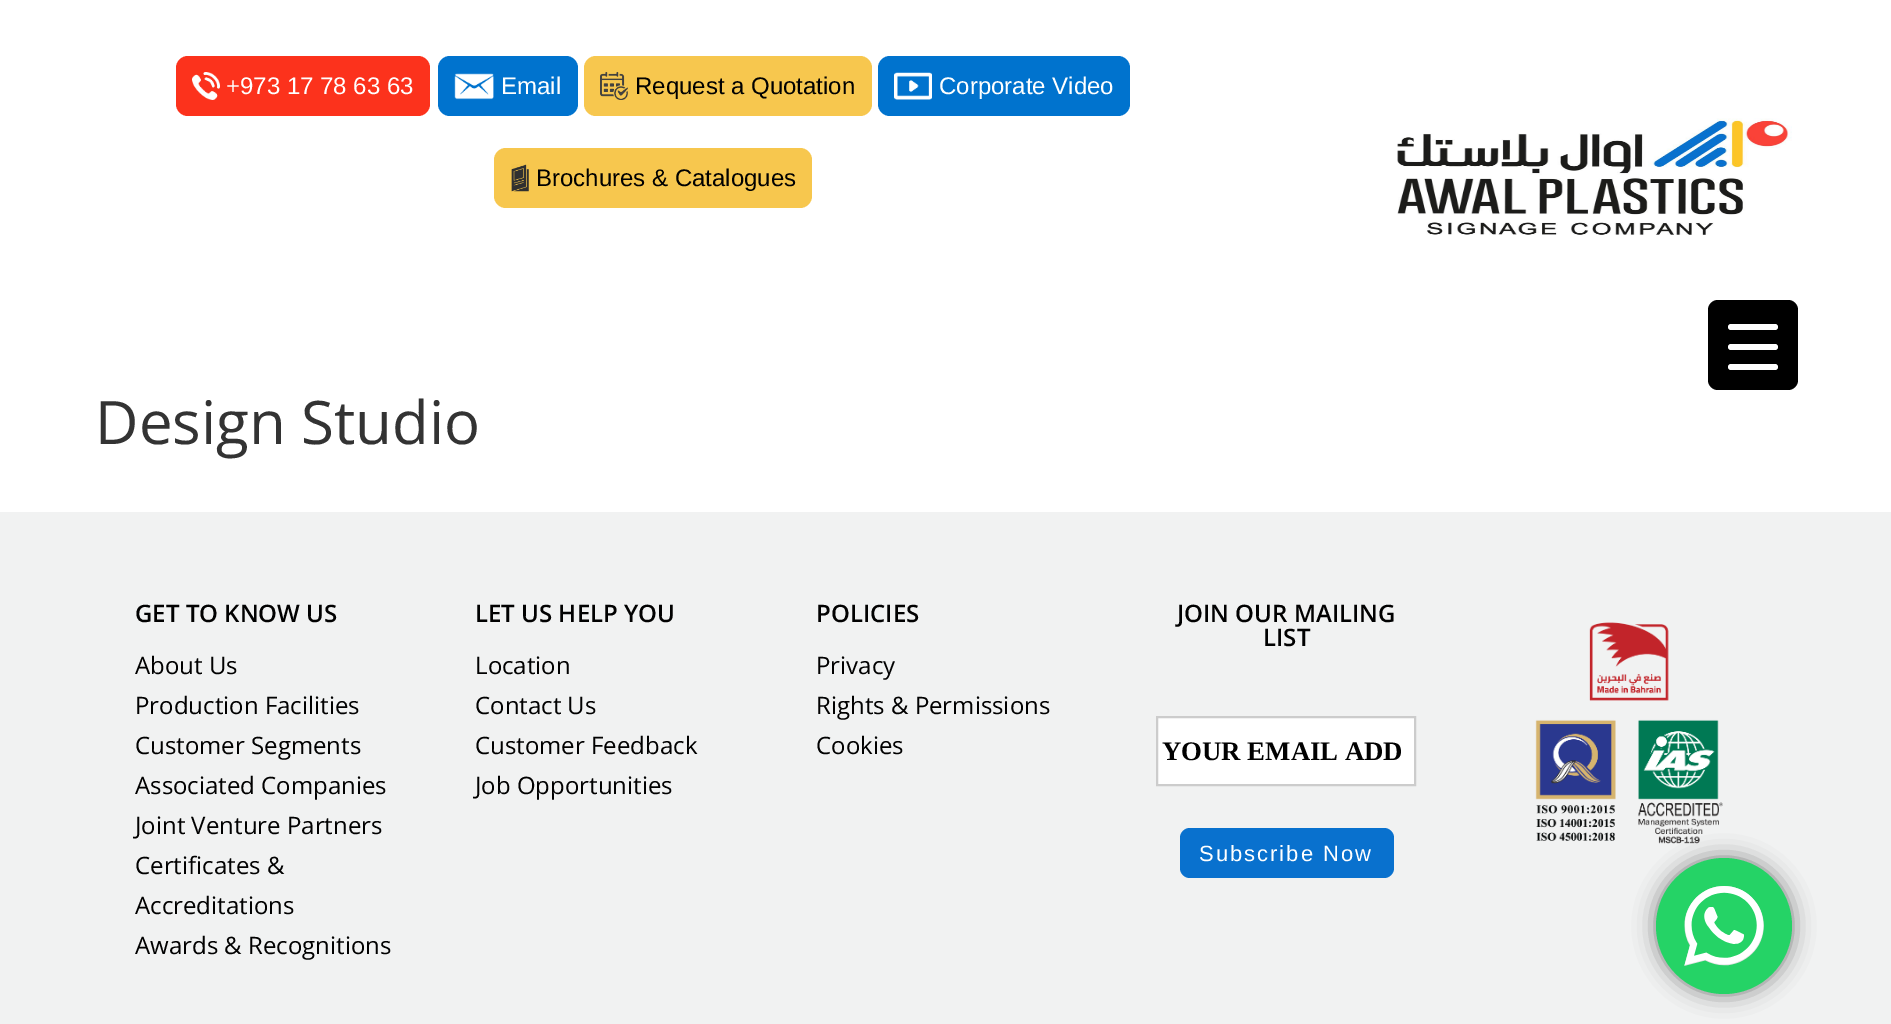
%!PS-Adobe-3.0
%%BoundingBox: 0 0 1891 1024
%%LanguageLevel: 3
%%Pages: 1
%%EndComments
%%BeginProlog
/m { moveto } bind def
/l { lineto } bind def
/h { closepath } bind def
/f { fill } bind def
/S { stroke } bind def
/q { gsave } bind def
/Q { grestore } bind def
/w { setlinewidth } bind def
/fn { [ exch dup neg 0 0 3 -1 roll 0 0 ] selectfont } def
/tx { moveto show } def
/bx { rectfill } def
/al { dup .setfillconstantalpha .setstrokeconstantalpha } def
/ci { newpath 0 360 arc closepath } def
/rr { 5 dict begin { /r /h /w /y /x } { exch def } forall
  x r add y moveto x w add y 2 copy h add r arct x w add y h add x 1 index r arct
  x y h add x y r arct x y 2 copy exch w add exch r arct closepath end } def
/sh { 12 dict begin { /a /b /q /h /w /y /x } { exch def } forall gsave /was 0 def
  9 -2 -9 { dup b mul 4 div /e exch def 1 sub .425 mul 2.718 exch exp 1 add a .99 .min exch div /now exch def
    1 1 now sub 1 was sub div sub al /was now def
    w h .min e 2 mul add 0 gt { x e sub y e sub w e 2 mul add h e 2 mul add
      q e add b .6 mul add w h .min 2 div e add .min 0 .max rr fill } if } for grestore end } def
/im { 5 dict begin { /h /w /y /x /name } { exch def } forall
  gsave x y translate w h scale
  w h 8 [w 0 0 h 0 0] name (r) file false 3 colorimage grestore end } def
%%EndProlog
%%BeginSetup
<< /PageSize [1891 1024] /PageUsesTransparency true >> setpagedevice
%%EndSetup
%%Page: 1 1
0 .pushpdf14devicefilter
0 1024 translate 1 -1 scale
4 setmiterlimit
1 setgray
0 0 1891 1024 bx
0.988 0.196 0.11 setrgbcolor
176 56 254 60 12 rr f
(image0.raw) 192 72 28 28 im
/LiberationSans-Regular 24 fn
1 setgray
(+973 17 78 63 63) 226 94 tx
0 0.451 0.808 setrgbcolor
438 56 140 60 12 rr f
(image1.raw) 454 73 40 27 im
1 setgray
(Email) 501 94 tx
0.969 0.78 0.306 setrgbcolor
584 56 288 60 12 rr f
(image2.raw) 600 72 28 28 im
0.004 setgray
(Request a Quotation) 635 94 tx
0 0.451 0.808 setrgbcolor
878 56 252 60 12 rr f
(image3.raw) 894 72 38 28 im
1 setgray
(Corporate Video) 939 94 tx
0.969 0.78 0.306 setrgbcolor
494 148 318 60 12 rr f
(image4.raw) 511 164 18 28 im
0.004 setgray
(Brochures & Catalogues) 536 186 tx
(image5.raw) 1397 118 395 117 im
/OpenSans-Regular 60 fn
0.2 setgray
(Design Studio) 95 444 tx
0.945 0.949 0.949 setrgbcolor
0 512 1891 512 bx
/OpenSans-SemiBold 24 fn
0.004 setgray
(GET TO KNOW US) 135 622 tx
/OpenSans-Regular 24 fn
(About Us) 135 674 tx
(Production Facilities) 135 714 tx
(Customer Segments) 135 754 tx
(Associated Companies) 135 794 tx
(Joint Venture Partners) 135 834 tx
(Certificates &) 135 874 tx
(Accreditations) 135 914 tx
(Awards & Recognitions) 135 954 tx
/OpenSans-SemiBold 24 fn
(LET US HELP YOU) 475 622 tx
/OpenSans-Regular 24 fn
(Location) 475 674 tx
(Contact Us) 475 714 tx
(Customer Feedback) 475 754 tx
(Job Opportunities) 475 794 tx
/OpenSans-SemiBold 24 fn
(POLICIES) 816 622 tx
/OpenSans-Regular 24 fn
(Privacy) 816 674 tx
(Rights & Permissions) 816 714 tx
(Cookies) 816 754 tx
/OpenSans-SemiBold 24 fn
(JOIN OUR MAILING) 1177 622 tx
(LIST) 1263 646 tx
1 setgray
1157 717 m 1415 717 l 1415 785 l 1157 785 l h q f Q
0.8 setgray
2 w
S
/LiberationSerif-Bold 26.75 fn
0.004 setgray
(YOUR EMAIL ADD) 1162 760 tx
0.035 0.443 0.808 setrgbcolor
1180 828 214 50 10 rr f
/LiberationSans-Regular 22 fn
1 setgray
1199 861 m 2 0 (Subscribe Now) ashow
(image6.raw) 1535 622 188 222 im
0 setgray
1708 300 90 90 10 rr f
1 setgray
1728 344 50 6 3 rr f
1728 324 50 6 3 rr f
1728 364 50 6 3 rr f
0 setgray
1656 858 136 136 68 11 0.5 sh
0.145 0.827 0.4 setrgbcolor
1724 926 68 ci f
(image7.raw) 1684 886 80 80 im
.poppdf14devicefilter showpage
%%EOF
